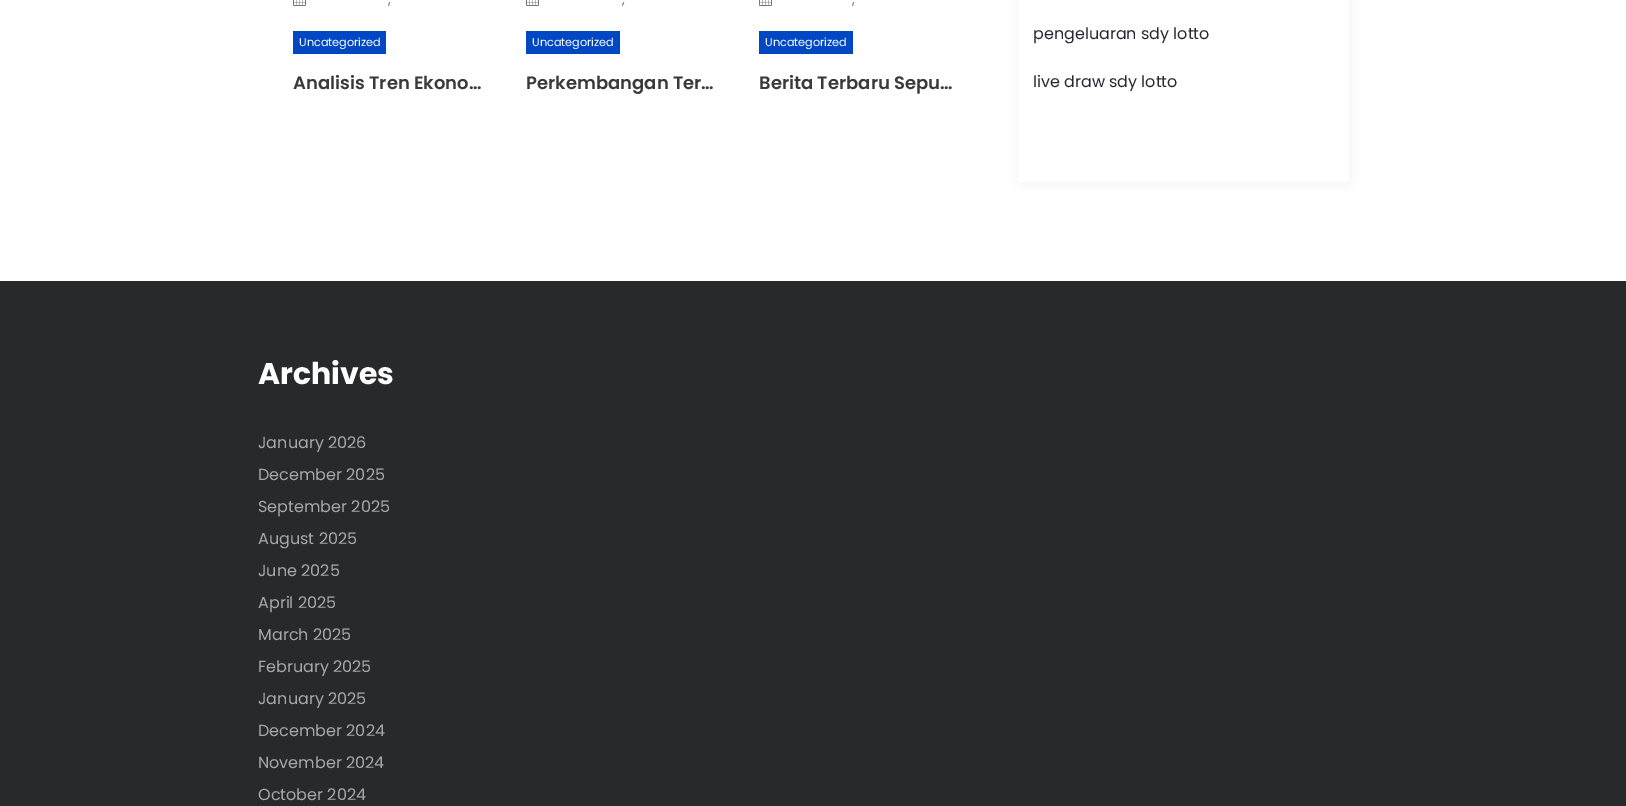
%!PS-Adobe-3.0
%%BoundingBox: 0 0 1626 806
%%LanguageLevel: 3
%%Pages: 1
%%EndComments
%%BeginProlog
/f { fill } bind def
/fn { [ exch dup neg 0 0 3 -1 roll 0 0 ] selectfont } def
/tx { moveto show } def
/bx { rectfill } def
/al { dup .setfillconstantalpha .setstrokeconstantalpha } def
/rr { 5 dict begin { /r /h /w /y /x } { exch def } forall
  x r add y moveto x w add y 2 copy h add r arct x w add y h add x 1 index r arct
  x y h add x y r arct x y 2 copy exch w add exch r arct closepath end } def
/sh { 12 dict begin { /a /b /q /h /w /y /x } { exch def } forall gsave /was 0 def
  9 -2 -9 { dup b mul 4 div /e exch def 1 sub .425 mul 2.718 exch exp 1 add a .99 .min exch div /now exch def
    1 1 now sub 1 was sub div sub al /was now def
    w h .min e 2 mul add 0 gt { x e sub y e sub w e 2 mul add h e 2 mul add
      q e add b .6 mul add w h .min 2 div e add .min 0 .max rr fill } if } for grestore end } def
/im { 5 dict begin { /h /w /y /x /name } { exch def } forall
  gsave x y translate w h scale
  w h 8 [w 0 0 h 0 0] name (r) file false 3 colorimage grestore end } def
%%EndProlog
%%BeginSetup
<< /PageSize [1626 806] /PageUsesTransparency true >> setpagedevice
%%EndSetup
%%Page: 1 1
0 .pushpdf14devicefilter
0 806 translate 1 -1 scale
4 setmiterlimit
1 setgray
0 0 1626 806 bx
(image0.raw) 293 0 13 6 im
/Poppins-Regular 14 fn
0.463 setgray
(,) 388 4 tx
0 0.278 0.769 setrgbcolor
293 31 93 23 bx
/Poppins-Regular 11.25 fn
1 setgray
(Uncategorized) 299 46 tx
/Poppins-SemiBold 18 fn
0.227 setgray
(Analisis Tren Ekono…) 293 89 tx
(image0.raw) 526 0 13 6 im
/Poppins-Regular 14 fn
0.463 setgray
(,) 622 4 tx
0 0.278 0.769 setrgbcolor
526 31 94 23 bx
/Poppins-Regular 11.25 fn
1 setgray
(Uncategorized) 532 46 tx
/Poppins-SemiBold 18 fn
0.227 setgray
(Perkembangan Ter…) 526 89 tx
(image0.raw) 759 0 13 6 im
/Poppins-Regular 14 fn
0.463 setgray
(,) 852 4 tx
0 0.278 0.769 setrgbcolor
759 31 94 23 bx
/Poppins-Regular 11.25 fn
1 setgray
(Uncategorized) 765 46 tx
/Poppins-SemiBold 18 fn
0.227 setgray
(Berita Terbaru Sepu…) 759 89 tx
0.949 setgray
1019 -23 331 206 3 6.5 1 sh
1 setgray
1018 -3 331 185 3 rr f
/Poppins-Regular 16 fn
0.157 0.157 0.208 setrgbcolor
(pengeluaran sdy lotto) 1033 39 tx
(live draw sdy lotto) 1033 87 tx
0.157 0.161 0.165 setrgbcolor
0 281 1626 525 bx
/Poppins-Bold 30 fn
1 setgray
(Archives) 258 384 tx
/Poppins-Regular 16 fn
0.659 setgray
(January 2026) 258 448 tx
(December 2025) 258 480 tx
(September 2025) 258 512 tx
(August 2025) 258 544 tx
(June 2025) 258 576 tx
(April 2025) 258 608 tx
(March 2025) 258 640 tx
(February 2025) 258 672 tx
(January 2025) 258 704 tx
(December 2024) 258 736 tx
(November 2024) 258 768 tx
(October 2024) 258 800 tx
.poppdf14devicefilter showpage
%%EOF
